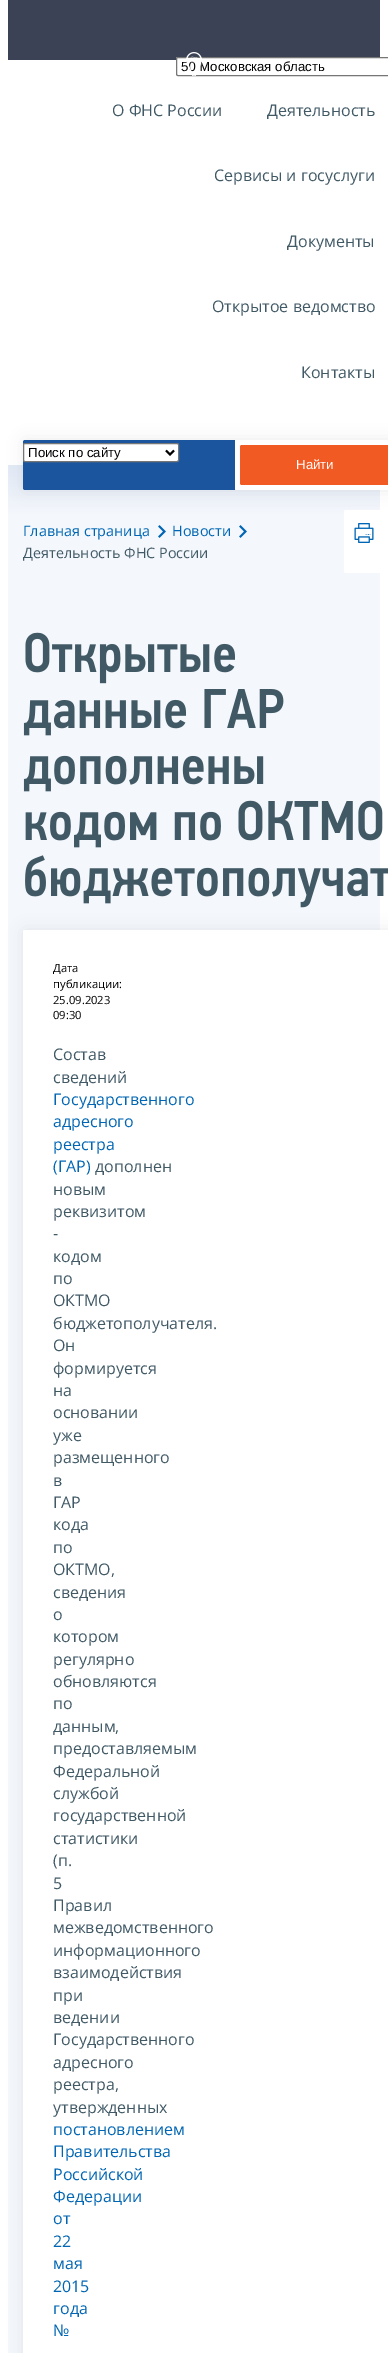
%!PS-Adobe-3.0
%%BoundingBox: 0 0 388 2353
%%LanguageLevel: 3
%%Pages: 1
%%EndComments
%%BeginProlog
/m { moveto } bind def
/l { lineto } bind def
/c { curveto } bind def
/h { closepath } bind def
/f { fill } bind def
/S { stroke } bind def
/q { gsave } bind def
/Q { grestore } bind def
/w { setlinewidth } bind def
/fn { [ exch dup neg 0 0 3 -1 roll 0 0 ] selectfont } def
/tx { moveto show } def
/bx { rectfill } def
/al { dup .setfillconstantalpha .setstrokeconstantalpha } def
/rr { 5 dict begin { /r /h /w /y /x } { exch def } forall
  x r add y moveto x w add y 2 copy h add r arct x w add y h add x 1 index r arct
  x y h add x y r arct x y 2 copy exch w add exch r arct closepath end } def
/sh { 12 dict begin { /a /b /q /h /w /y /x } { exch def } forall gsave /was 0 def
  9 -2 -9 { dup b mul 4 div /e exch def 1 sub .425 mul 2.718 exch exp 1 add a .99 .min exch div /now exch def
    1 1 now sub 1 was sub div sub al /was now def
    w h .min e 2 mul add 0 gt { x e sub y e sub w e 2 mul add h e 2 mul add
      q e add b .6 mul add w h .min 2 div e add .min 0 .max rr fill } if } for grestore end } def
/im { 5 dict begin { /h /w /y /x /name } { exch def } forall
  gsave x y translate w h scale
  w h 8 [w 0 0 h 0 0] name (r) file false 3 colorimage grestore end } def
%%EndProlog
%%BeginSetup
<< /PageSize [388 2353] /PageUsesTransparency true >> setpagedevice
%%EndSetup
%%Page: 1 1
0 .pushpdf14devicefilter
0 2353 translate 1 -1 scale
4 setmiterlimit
1 setgray
0 0 388 2353 bx
0.231 0.259 0.337 setrgbcolor
8 0 372 60 bx
1 setgray
178 57 m 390 57 l 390 76 l 178 76 l 177 76 176 75 176 74 c 176 59 l 176 58 177 57 178 57 c h f
0.463 setgray
176.5 57.5 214 18 1.5 rr S
/LiberationSans-Regular 13.25 fn
0 setgray
(50 Московская область) 181 71 tx
(image0.raw) 186 52 16 24 im
/OpenSans-Regular 16 fn
0.251 0.349 0.396 setrgbcolor
(О ФНС России) 112 116 tx
(Деятельность) 267 116 tx
(Сервисы и госуслуги) 214 181 tx
(Документы) 287 247 tx
(Открытое ведомство) 212 312 tx
(Контакты) 301 378 tx
q 8 465 m 380 465 l 380 515 l 8 515 l h clip newpath
<< /ShadingType 2 /ColorSpace /DeviceRGB /Coords [194 465 194 515] /Extend [true true] /Function << /FunctionType 2 /Domain [0 1] /C0 [0.886 0.918 0.965] /C1 [0.957 0.969 0.988] /N 1 >> >> shfill Q
0.957 0.969 0.988 setrgbcolor
8 515 372 1838 bx
1 setgray
344 510 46 63 2 rr f
0 setgray
23 440 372 50 2 7.5 0.07 sh
0.106 0.333 0.62 setrgbcolor
25 440 m 235 440 l 235 490 l 25 490 l 24 490 23 489 23 488 c 23 442 l 23 441 24 440 25 440 c h f
1 setgray
23.5 443.5 155 18 1.5 rr q f Q
0.463 setgray
S
0 setgray
2 w
166 450.5 m 170 454.5 l 174 450.5 l S
/LiberationSans-Regular 13.25 fn
(Поиск по сайту) 28 457 tx
1 setgray
235 440 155 50 2 rr f
0.945 0.353 0.133 setrgbcolor
240 445 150 40 2 rr f
1 setgray
(Найти) 296 469 tx
/OpenSans-Regular 14.4 fn
0 0.4 0.702 setrgbcolor
(Главная страница) 23 536 tx
(image1.raw) 158 525 8 13 im
(Новости) 172 536 tx
(image1.raw) 239 525 8 13 im
0.251 0.349 0.396 setrgbcolor
(Деятельность ФНС России) 23 558 tx
(image2.raw) 354 523 20 20 im
(image3.raw) 25 632 210 52 im
(image4.raw) 23 689 261 47 im
(image5.raw) 23 755 241 37 im
(image6.raw) 25 800 358 48 im
0 setgray
23 930 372 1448 2 7.5 0.07 sh
(image7.raw) 25 855 363 53 im
1 setgray
23 930 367 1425 2 rr f
/OpenSans-Regular 11.25 fn
0 setgray
(Дата) 53 972 tx
(публикации:) 53 988 tx
(25.09.2023) 53 1004 tx
(09:30) 53 1019 tx
/OpenSans-Regular 16 fn
0.251 0.349 0.396 setrgbcolor
(Состав) 53 1060 tx
(сведений) 53 1083 tx
0 0.4 0.702 setrgbcolor
(Государственного) 53 1105 tx
(адресного) 53 1127 tx
(реестра) 53 1150 tx
(\(ГАР\)) 53 1172 tx
0.251 0.349 0.396 setrgbcolor
(дополнен) 95 1172 tx
(новым) 53 1195 tx
(реквизитом) 53 1217 tx
(-) 53 1239 tx
(кодом) 53 1262 tx
(по) 53 1284 tx
(ОКТМО) 53 1306 tx
(бюджетополучателя.) 53 1329 tx
(Он) 53 1351 tx
(формируется) 53 1374 tx
(на) 53 1396 tx
(основании) 53 1418 tx
(уже) 53 1441 tx
(размещенного) 53 1463 tx
(в) 53 1486 tx
(ГАР) 53 1508 tx
(кода) 53 1530 tx
(по) 53 1553 tx
(ОКТМО,) 53 1575 tx
(сведения) 53 1598 tx
(о) 53 1620 tx
(котором) 53 1642 tx
(регулярно) 53 1665 tx
(обновляются) 53 1687 tx
(по) 53 1709 tx
(данным,) 53 1732 tx
(предоставляемым) 53 1754 tx
(Федеральной) 53 1777 tx
(службой) 53 1799 tx
(государственной) 53 1821 tx
(статистики) 53 1844 tx
(\(п.) 53 1866 tx
(5) 53 1889 tx
(Правил) 53 1911 tx
(межведомственного) 53 1933 tx
(информационного) 53 1956 tx
(взаимодействия) 53 1978 tx
(при) 53 2001 tx
(ведении) 53 2023 tx
(Государственного) 53 2045 tx
(адресного) 53 2068 tx
(реестра,) 53 2090 tx
(утвержденных) 53 2113 tx
0 0.4 0.702 setrgbcolor
(постановлением) 53 2135 tx
(Правительства) 53 2157 tx
(Российской) 53 2180 tx
(Федерации) 53 2202 tx
(от) 53 2224 tx
(22) 53 2247 tx
(мая) 53 2269 tx
(2015) 53 2292 tx
(года) 53 2314 tx
(№) 53 2336 tx
.poppdf14devicefilter showpage
%%EOF
